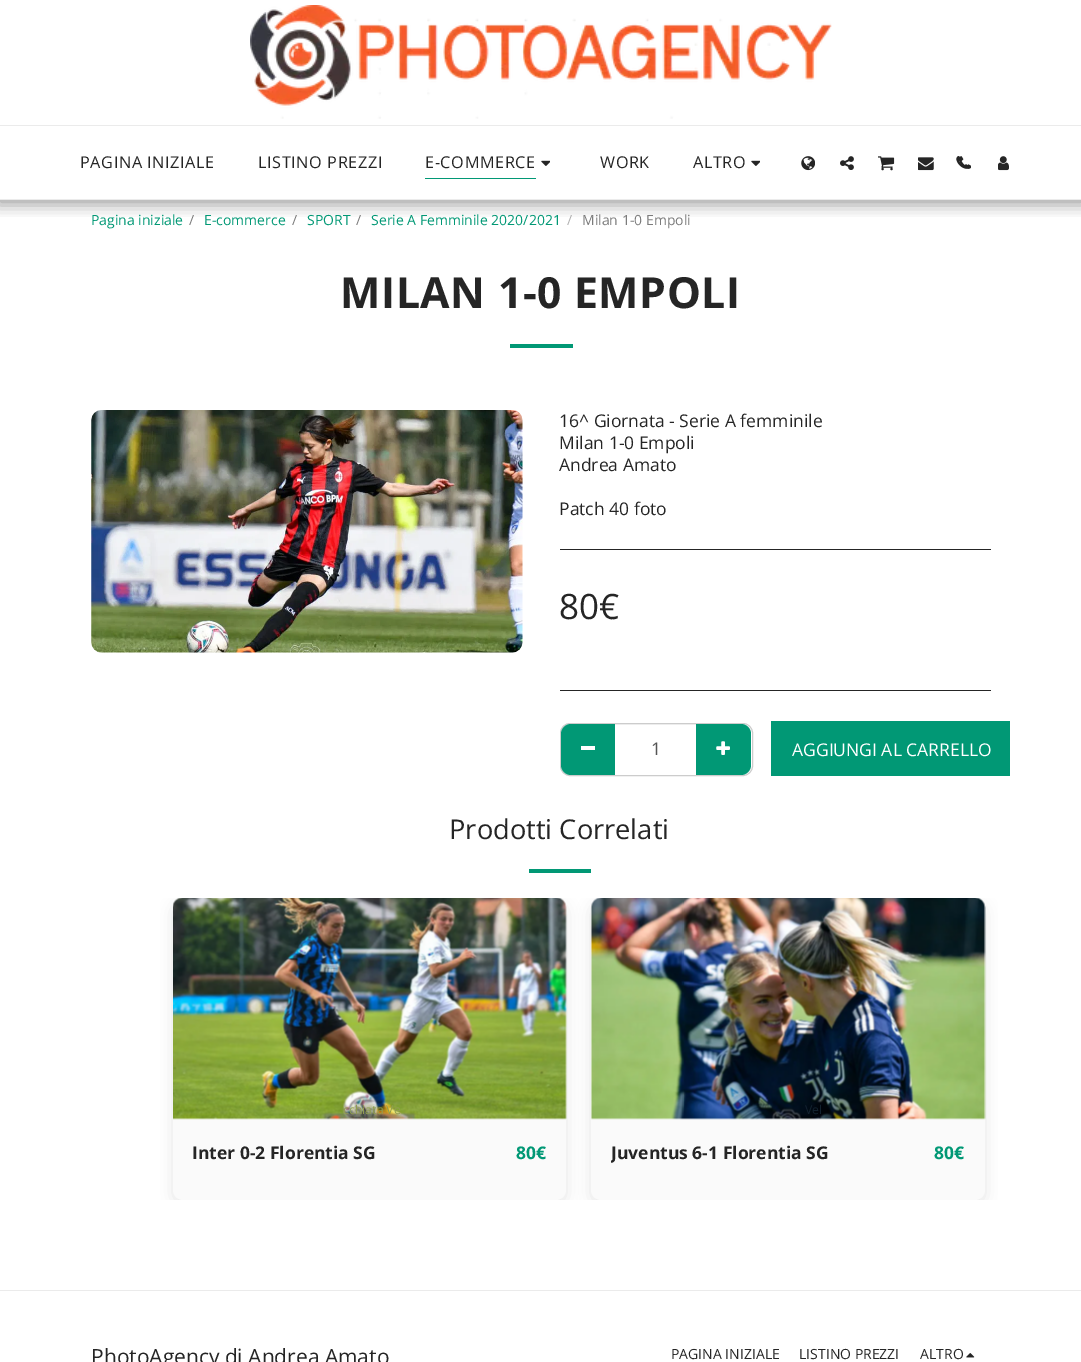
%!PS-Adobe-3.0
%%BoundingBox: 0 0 1081 1362
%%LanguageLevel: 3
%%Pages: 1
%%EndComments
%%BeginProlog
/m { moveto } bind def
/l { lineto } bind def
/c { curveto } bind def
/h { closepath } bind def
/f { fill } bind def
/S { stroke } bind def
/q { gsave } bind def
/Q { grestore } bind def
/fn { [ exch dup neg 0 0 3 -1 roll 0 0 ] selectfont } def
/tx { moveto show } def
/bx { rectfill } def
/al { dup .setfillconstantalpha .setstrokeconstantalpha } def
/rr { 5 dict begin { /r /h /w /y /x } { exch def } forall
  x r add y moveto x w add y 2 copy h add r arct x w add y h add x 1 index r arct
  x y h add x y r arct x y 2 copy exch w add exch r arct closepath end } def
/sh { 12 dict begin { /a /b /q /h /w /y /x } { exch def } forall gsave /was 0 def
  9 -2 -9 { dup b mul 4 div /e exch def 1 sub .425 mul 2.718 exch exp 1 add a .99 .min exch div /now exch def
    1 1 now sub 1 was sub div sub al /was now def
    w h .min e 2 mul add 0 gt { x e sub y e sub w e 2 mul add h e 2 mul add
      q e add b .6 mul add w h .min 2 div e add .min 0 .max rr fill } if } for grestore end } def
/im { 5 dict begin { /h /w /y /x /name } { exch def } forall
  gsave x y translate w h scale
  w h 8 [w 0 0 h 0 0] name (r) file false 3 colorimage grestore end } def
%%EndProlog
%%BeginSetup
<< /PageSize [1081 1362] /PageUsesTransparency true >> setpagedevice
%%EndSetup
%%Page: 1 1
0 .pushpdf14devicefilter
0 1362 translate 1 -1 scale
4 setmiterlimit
1 setgray
0 0 1081 1362 bx
q
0 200 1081 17 rectclip
0 setgray
-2 0 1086 205 0 7.5 0.35 sh
Q
0.922 setgray
0 199 1081 1 bx
(image0.raw) 250 5 582 114 im
0 125 1081 1 bx
/OpenSans-Regular 16.25 fn
0.145 setgray
80 168 m 0.6 0 (PAGINA INIZIALE) ashow
258 168 m 0.6 0 (LISTINO PREZZI) ashow
425 168 m 0.6 0 (E-COMMERCE) ashow
0.004 0.596 0.459 setrgbcolor
425 178 111 1 bx
(image1.raw) 541 160 9 6 im
0.145 setgray
600 168 m 0.6 0 (WORK) ashow
693 168 m 0.6 0 (ALTRO) ashow
(image1.raw) 751 160 9 6 im
(image2.raw) 801 156 14 15 im
(image3.raw) 840 156 14 14 im
(image4.raw) 878 156 17 15 im
(image5.raw) 918 157 16 14 im
(image6.raw) 959 156 12 13 im
(image7.raw) 956 156 12 13 im
(image8.raw) 998 156 11 15 im
/OpenSans-Regular 14 fn
0.004 0.596 0.459 setrgbcolor
(Pagina iniziale) 91 225 tx
0.486 setgray
(/) 189 225 tx
0.004 0.596 0.459 setrgbcolor
(E-commerce) 204 225 tx
0.486 setgray
(/) 292 225 tx
0.004 0.596 0.459 setrgbcolor
(SPORT) 307 225 tx
0.486 setgray
(/) 356 225 tx
0.004 0.596 0.459 setrgbcolor
(Serie A Femminile 2020/2021) 371 225 tx
0.694 setgray
(/) 567 225 tx
0.486 setgray
(Milan 1-0 Empoli) 582 225 tx
/OpenSans-Bold 42.75 fn
0.145 setgray
340 308 m 0.6 0 (MILAN 1-0 EMPOLI) ashow
0.004 0.596 0.459 setrgbcolor
510 344 63 4 bx
(image9.raw) 91 410 432 243 im
/OpenSans-Regular 17.5 fn
0.145 setgray
(16^ Giornata - Serie A femminile) 559 427 tx
(Milan 1-0 Empoli) 559 449 tx
(Andrea Amato) 559 471 tx
(Patch 40 foto) 559 515 tx
560 549 431 1 bx
/OpenSans-Regular 35 fn
(80€) 559 619 tx
560 690 431 1 bx
0.8 setgray
560.5 723.5 192 52 9.5 rr S
0.004 0.596 0.459 setrgbcolor
571 724 m 616 724 l 616 775 l 571 775 l 565.5 775 561 770.5 561 765 c 561 734 l 561 728.5 565.5 724 571 724 c h f
1 setgray
581 746 14 4 bx
0.004 0.596 0.459 setrgbcolor
695 724 m 741 724 l 746.5 724 751 728.5 751 734 c 751 765 l 751 770.5 746.5 775 741 775 c 695 775 l h f
1 setgray
615 725 81 50 bx
0.925 setgray
615 724 81 1 bx
/OpenSans-Regular 17.5 fn
0.333 setgray
(1) 651 755 tx
(image10.raw) 716 741 14 14 im
0.004 0.596 0.459 setrgbcolor
771 721 239 55 bx
1 setgray
(AGGIUNGI AL CARRELLO) 792 756 tx
/OpenSans-Regular 27.25 fn
0.145 setgray
(Prodotti Correlati) 449 839 tx
0.004 0.596 0.459 setrgbcolor
529 869 62 4 bx
q
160 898 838 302 rectclip
0.506 setgray
173 903 393 302 10 7.5 0.2 sh
Q
0.98 setgray
173 898 393 302 10 rr f
(image11.raw) 173 898 394 222 im
/OpenSans-Regular 12.25 fn
0.565 0.612 0.31 setrgbcolor
(cchiata Ve) 343 1114 tx
/OpenSans-Bold 17.5 fn
0.145 setgray
(Inter 0-2 Florentia SG) 192 1159 tx
0.004 0.596 0.459 setrgbcolor
(80€) 516 1159 tx
q
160 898 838 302 rectclip
0.506 setgray
591 903 394 302 10 7.5 0.2 sh
Q
0.98 setgray
591 898 394 302 10 rr f
(image12.raw) 590 898 396 222 im
/OpenSans-Regular 12.25 fn
0.071 0.129 0.18 setrgbcolor
(Vel) 805 1114 tx
q
611 1139 218 26 rectclip
/OpenSans-Bold 17.5 fn
0.145 setgray
(Juventus 6-1 Florentia SG) 611 1159 tx
Q
/OpenSans-Bold 17.5 fn
0.004 0.596 0.459 setrgbcolor
(80€) 934 1159 tx
0.922 setgray
0 1290 1081 1 bx
/OpenSans-Regular 21 fn
0.145 setgray
(PhotoAgency di Andrea Amato) 91 1364 tx
/OpenSans-Regular 14 fn
(PAGINA INIZIALE) 671 1359 tx
(LISTINO PREZZI) 799 1359 tx
(ALTRO) 920 1359 tx
(image13.raw) 966 1353 9 5 im
.poppdf14devicefilter showpage
%%EOF
